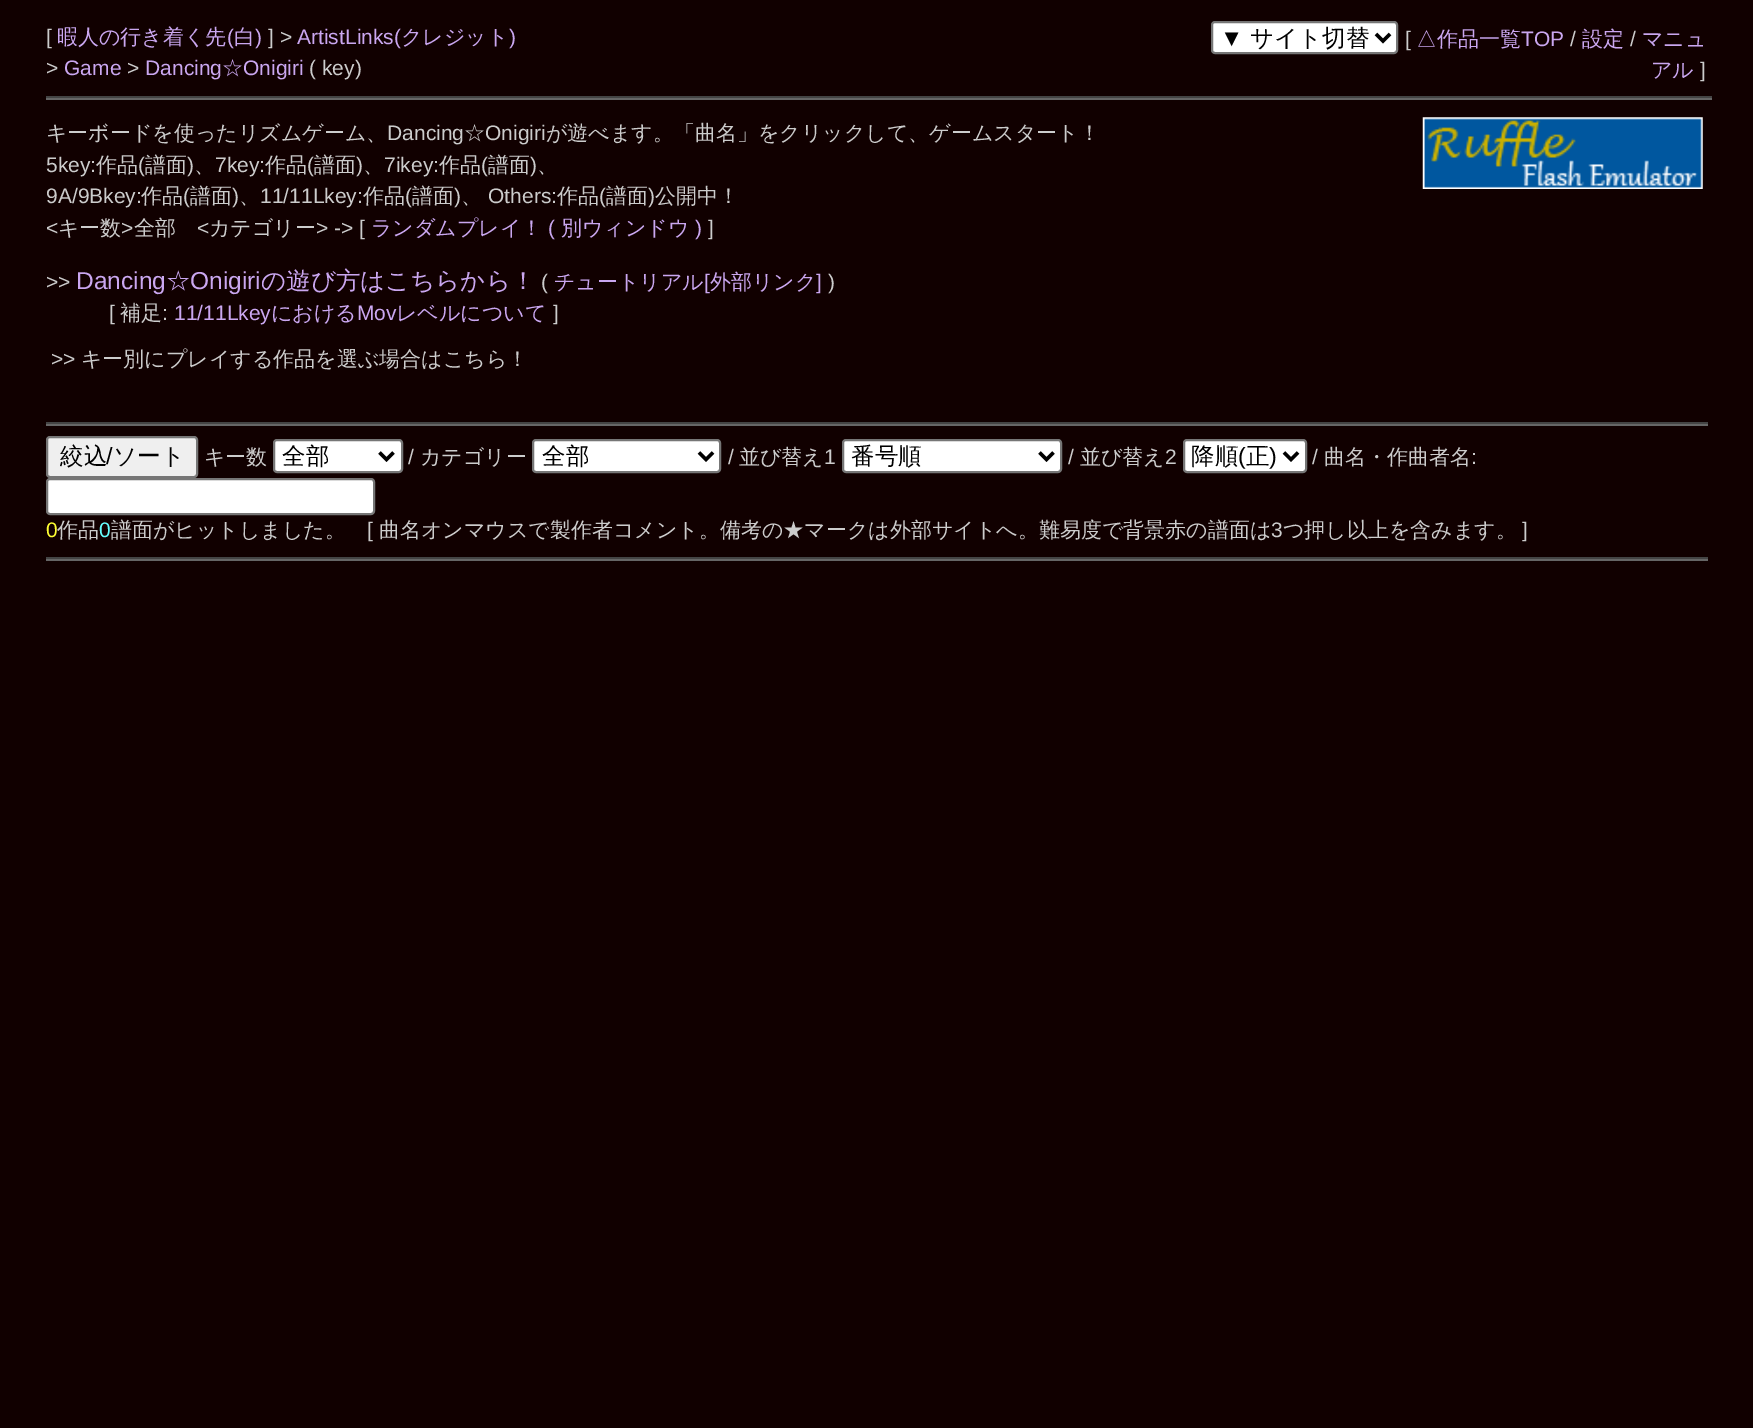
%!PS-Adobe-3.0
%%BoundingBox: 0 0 1753 1428
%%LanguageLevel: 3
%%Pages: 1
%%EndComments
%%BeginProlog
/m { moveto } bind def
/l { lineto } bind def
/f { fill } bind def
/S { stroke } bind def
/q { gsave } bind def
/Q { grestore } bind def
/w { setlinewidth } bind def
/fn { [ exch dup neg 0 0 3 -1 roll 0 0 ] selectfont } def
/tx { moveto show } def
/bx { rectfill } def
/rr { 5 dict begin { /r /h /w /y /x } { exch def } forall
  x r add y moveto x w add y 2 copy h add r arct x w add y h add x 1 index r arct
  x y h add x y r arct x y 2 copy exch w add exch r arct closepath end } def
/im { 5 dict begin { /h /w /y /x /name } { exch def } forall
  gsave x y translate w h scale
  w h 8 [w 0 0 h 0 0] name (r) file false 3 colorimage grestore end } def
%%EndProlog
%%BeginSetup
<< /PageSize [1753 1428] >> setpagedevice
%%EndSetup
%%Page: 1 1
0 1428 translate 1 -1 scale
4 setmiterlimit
0.067 0 0 setrgbcolor
0 0 1753 1428 bx
/LiberationSans-Regular 21 fn
0.8 setgray
([) 46 44 tx
/WenQuanYiZenHei-Medium 21 fn
0.792 0.655 0.941 setrgbcolor
(暇人の行き着く先) 57 44 tx
/LiberationSans-Regular 21 fn
(\() 227 44 tx
/WenQuanYiZenHei-Medium 21 fn
(白) 234 44 tx
/LiberationSans-Regular 21 fn
(\)) 255 44 tx
0.8 setgray
(] >) 268 44 tx
0.792 0.655 0.941 setrgbcolor
(ArtistLinks\() 297 44 tx
/WenQuanYiZenHei-Medium 21 fn
(クレジット) 401 44 tx
/LiberationSans-Regular 21 fn
(\)) 509 44 tx
0.8 setgray
(>) 46 75 tx
0.792 0.655 0.941 setrgbcolor
(Game) 64 75 tx
0.8 setgray
(>) 127 75 tx
0.792 0.655 0.941 setrgbcolor
(Dancing) 145 75 tx
/WenQuanYiZenHei-Medium 21 fn
(☆) 222 75 tx
/LiberationSans-Regular 21 fn
(Onigiri) 243 75 tx
0.8 setgray
(\( key\)) 309 75 tx
1 setgray
1212 22 185 31 3 rr q f Q
0.463 setgray
2 w
S
0 setgray
3.5 w
1376 34 m 1383 41 l 1390 34 l S
/LiberationSans-Regular 23.5 fn
(▼) 1220 46 tx
/WenQuanYiZenHei-Medium 23.5 fn
(サイト切替) 1250 46 tx
/LiberationSans-Regular 21 fn
0.8 setgray
([) 1405 46 tx
/WenQuanYiZenHei-Medium 21 fn
0.792 0.655 0.941 setrgbcolor
(△作品一覧) 1416 46 tx
/LiberationSans-Regular 21 fn
(TOP) 1521 46 tx
0.8 setgray
(/) 1570 46 tx
/WenQuanYiZenHei-Medium 21 fn
0.792 0.655 0.941 setrgbcolor
(設定) 1582 46 tx
/LiberationSans-Regular 21 fn
0.8 setgray
(/) 1630 46 tx
/WenQuanYiZenHei-Medium 21 fn
0.792 0.655 0.941 setrgbcolor
(マニュ) 1642 46 tx
(アル) 1651 77 tx
/LiberationSans-Regular 21 fn
0.8 setgray
(]) 1700 77 tx
0.4 setgray
46 98 1666 2 bx
0.267 setgray
46 96 1666 2 bx
/WenQuanYiZenHei-Medium 21 fn
0.8 setgray
(キーボードを使ったリズムゲーム、) 46 140 tx
/LiberationSans-Regular 21 fn
(Dancing) 387 140 tx
/WenQuanYiZenHei-Medium 21 fn
(☆) 464 140 tx
/LiberationSans-Regular 21 fn
(Onigiri) 485 140 tx
/WenQuanYiZenHei-Medium 21 fn
(が遊べます。「曲名」をクリックして、ゲームスタート！) 546 140 tx
(image0.raw) 1422 117 281 72 im
/LiberationSans-Regular 21 fn
(5key:) 46 172 tx
/WenQuanYiZenHei-Medium 21 fn
(作品) 96 172 tx
/LiberationSans-Regular 21 fn
(\() 138 172 tx
/WenQuanYiZenHei-Medium 21 fn
(譜面) 145 172 tx
/LiberationSans-Regular 21 fn
(\)) 187 172 tx
/WenQuanYiZenHei-Medium 21 fn
(、) 194 172 tx
/LiberationSans-Regular 21 fn
(7key:) 215 172 tx
/WenQuanYiZenHei-Medium 21 fn
(作品) 265 172 tx
/LiberationSans-Regular 21 fn
(\() 307 172 tx
/WenQuanYiZenHei-Medium 21 fn
(譜面) 314 172 tx
/LiberationSans-Regular 21 fn
(\)) 356 172 tx
/WenQuanYiZenHei-Medium 21 fn
(、) 363 172 tx
/LiberationSans-Regular 21 fn
(7ikey:) 384 172 tx
/WenQuanYiZenHei-Medium 21 fn
(作品) 439 172 tx
/LiberationSans-Regular 21 fn
(\() 481 172 tx
/WenQuanYiZenHei-Medium 21 fn
(譜面) 488 172 tx
/LiberationSans-Regular 21 fn
(\)) 530 172 tx
/WenQuanYiZenHei-Medium 21 fn
(、) 537 172 tx
/LiberationSans-Regular 21 fn
(9A/9Bkey:) 46 203 tx
/WenQuanYiZenHei-Medium 21 fn
(作品) 141 203 tx
/LiberationSans-Regular 21 fn
(\() 183 203 tx
/WenQuanYiZenHei-Medium 21 fn
(譜面) 190 203 tx
/LiberationSans-Regular 21 fn
(\)) 232 203 tx
/WenQuanYiZenHei-Medium 21 fn
(、) 239 203 tx
/LiberationSans-Regular 21 fn
(11/11Lkey:) 260 203 tx
/WenQuanYiZenHei-Medium 21 fn
(作品) 363 203 tx
/LiberationSans-Regular 21 fn
(\() 405 203 tx
/WenQuanYiZenHei-Medium 21 fn
(譜面) 412 203 tx
/LiberationSans-Regular 21 fn
(\)) 454 203 tx
/WenQuanYiZenHei-Medium 21 fn
(、) 461 203 tx
/LiberationSans-Regular 21 fn
(Others:) 488 203 tx
/WenQuanYiZenHei-Medium 21 fn
(作品) 557 203 tx
/LiberationSans-Regular 21 fn
(\() 599 203 tx
/WenQuanYiZenHei-Medium 21 fn
(譜面) 606 203 tx
/LiberationSans-Regular 21 fn
(\)) 648 203 tx
/WenQuanYiZenHei-Medium 21 fn
(公開中！) 655 203 tx
/LiberationSans-Regular 21 fn
(<) 46 235 tx
/WenQuanYiZenHei-Medium 21 fn
(キー数) 58 235 tx
/LiberationSans-Regular 21 fn
(>) 121 235 tx
/WenQuanYiZenHei-Medium 21 fn
(全部) 134 235 tx
/LiberationSans-Regular 21 fn
(<) 197 235 tx
/WenQuanYiZenHei-Medium 21 fn
(カテゴリー) 209 235 tx
/LiberationSans-Regular 21 fn
(> -> [) 316 235 tx
/WenQuanYiZenHei-Medium 21 fn
0.792 0.655 0.941 setrgbcolor
(ランダムプレイ！) 371 235 tx
/LiberationSans-Regular 21 fn
(\() 548 235 tx
/WenQuanYiZenHei-Medium 21 fn
(別ウィンドウ) 561 235 tx
/LiberationSans-Regular 21 fn
(\)) 695 235 tx
0.8 setgray
(]) 708 235 tx
(>>) 46 289 tx
/LiberationSans-Regular 24.5 fn
0.792 0.655 0.941 setrgbcolor
(Dancing) 76 289 tx
/WenQuanYiZenHei-Medium 24.5 fn
(☆) 166 289 tx
/LiberationSans-Regular 24.5 fn
(Onigiri) 190 289 tx
/WenQuanYiZenHei-Medium 24.5 fn
(の遊び方はこちらから！) 261 289 tx
/LiberationSans-Regular 21 fn
0.8 setgray
(\() 541 289 tx
/WenQuanYiZenHei-Medium 21 fn
0.792 0.655 0.941 setrgbcolor
(チュートリアル) 554 289 tx
/LiberationSans-Regular 21 fn
([) 704 289 tx
/WenQuanYiZenHei-Medium 21 fn
(外部リンク) 710 289 tx
/LiberationSans-Regular 21 fn
(]) 816 289 tx
0.8 setgray
(\)) 828 289 tx
([) 109 320 tx
/WenQuanYiZenHei-Medium 21 fn
(補足) 120 320 tx
/LiberationSans-Regular 21 fn
(:) 162 320 tx
0.792 0.655 0.941 setrgbcolor
(11/11Lkey) 174 320 tx
/WenQuanYiZenHei-Medium 21 fn
(における) 271 320 tx
/LiberationSans-Regular 21 fn
(Mov) 357 320 tx
/WenQuanYiZenHei-Medium 21 fn
(レベルについて) 396 320 tx
/LiberationSans-Regular 21 fn
0.8 setgray
(]) 553 320 tx
(>>) 51 366 tx
/WenQuanYiZenHei-Medium 21 fn
(キー別にプレイする作品を選ぶ場合はこちら！) 81 366 tx
0.4 setgray
46 424 1662 2 bx
0.267 setgray
46 422 1662 2 bx
0.937 setgray
47 437 150 40 3 rr q f Q
0.463 setgray
2 w
S
/WenQuanYiZenHei-Medium 23.5 fn
0 setgray
(絞込) 60 464 tx
/LiberationSans-Regular 23.5 fn
(/) 106 464 tx
/WenQuanYiZenHei-Medium 23.5 fn
(ソート) 113 464 tx
/WenQuanYiZenHei-Medium 21 fn
0.8 setgray
(キー数) 204 464 tx
1 setgray
274 440 128 32 3 rr q f Q
0.463 setgray
S
0 setgray
3.5 w
379.5 452.5 m 386.5 459.5 l 393.5 452.5 l S
/WenQuanYiZenHei-Medium 23.5 fn
(全部) 282 464 tx
/LiberationSans-Regular 21 fn
0.8 setgray
(/) 408 464 tx
/WenQuanYiZenHei-Medium 21 fn
(カテゴリー) 420 464 tx
1 setgray
533 440 187 32 3 rr q f Q
0.463 setgray
2 w
S
0 setgray
3.5 w
699 452.5 m 706 459.5 l 713 452.5 l S
/WenQuanYiZenHei-Medium 23.5 fn
(全部) 542 464 tx
/LiberationSans-Regular 21 fn
0.8 setgray
(/) 728 464 tx
/WenQuanYiZenHei-Medium 21 fn
(並び替え) 739 464 tx
/LiberationSans-Regular 21 fn
(1) 824 464 tx
1 setgray
843 440 218 32 3 rr q f Q
0.463 setgray
2 w
S
0 setgray
3.5 w
1039.5 452.5 m 1046.5 459.5 l 1053.5 452.5 l S
/WenQuanYiZenHei-Medium 23.5 fn
(番号順) 851 464 tx
/LiberationSans-Regular 21 fn
0.8 setgray
(/) 1068 464 tx
/WenQuanYiZenHei-Medium 21 fn
(並び替え) 1080 464 tx
/LiberationSans-Regular 21 fn
(2) 1165 464 tx
1 setgray
1184 440 122 32 3 rr q f Q
0.463 setgray
2 w
S
0 setgray
3.5 w
1284 452.5 m 1291 459.5 l 1298 452.5 l S
/WenQuanYiZenHei-Medium 23.5 fn
(降順) 1191 464 tx
/LiberationSans-Regular 23.5 fn
(\() 1238 464 tx
/WenQuanYiZenHei-Medium 23.5 fn
(正) 1246 464 tx
/LiberationSans-Regular 23.5 fn
(\)) 1269 464 tx
/LiberationSans-Regular 21 fn
0.8 setgray
(/) 1312 464 tx
/WenQuanYiZenHei-Medium 21 fn
(曲名・作曲者名) 1324 464 tx
/LiberationSans-Regular 21 fn
(:) 1471 464 tx
1 setgray
47 479 327 35 3 rr q f Q
0.463 setgray
2 w
S
1 1 0.2 setrgbcolor
(0) 46 537 tx
/WenQuanYiZenHei-Medium 21 fn
0.8 setgray
(作品) 57 537 tx
/LiberationSans-Regular 21 fn
0.4 1 1 setrgbcolor
(0) 99 537 tx
/WenQuanYiZenHei-Medium 21 fn
0.8 setgray
(譜面がヒットしました。) 111 537 tx
/LiberationSans-Regular 21 fn
([) 367 537 tx
/WenQuanYiZenHei-Medium 21 fn
(曲名オンマウスで製作者コメント。備考の★マークは外部サイトへ。難易度で背景赤の譜面は) 379 537 tx
/LiberationSans-Regular 21 fn
(3) 1271 537 tx
/WenQuanYiZenHei-Medium 21 fn
(つ押し以上を含みます。) 1283 537 tx
/LiberationSans-Regular 21 fn
(]) 1522 537 tx
0.4 setgray
46 559 1662 2 bx
0.267 setgray
46 557 1662 2 bx
showpage
%%EOF
